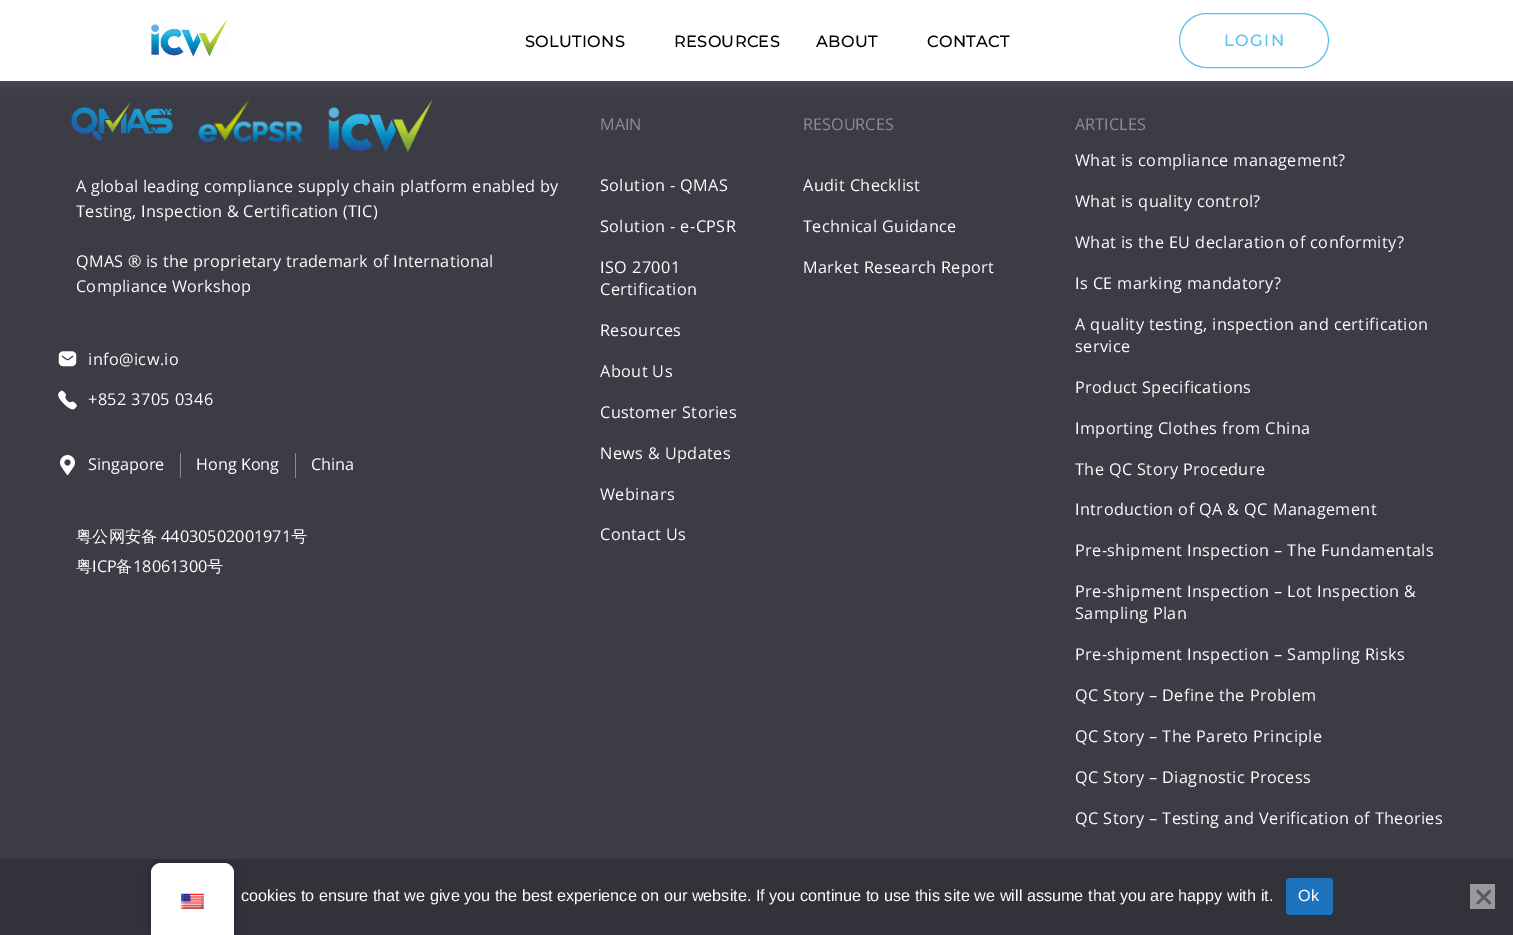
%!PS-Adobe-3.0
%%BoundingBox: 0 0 1513 935
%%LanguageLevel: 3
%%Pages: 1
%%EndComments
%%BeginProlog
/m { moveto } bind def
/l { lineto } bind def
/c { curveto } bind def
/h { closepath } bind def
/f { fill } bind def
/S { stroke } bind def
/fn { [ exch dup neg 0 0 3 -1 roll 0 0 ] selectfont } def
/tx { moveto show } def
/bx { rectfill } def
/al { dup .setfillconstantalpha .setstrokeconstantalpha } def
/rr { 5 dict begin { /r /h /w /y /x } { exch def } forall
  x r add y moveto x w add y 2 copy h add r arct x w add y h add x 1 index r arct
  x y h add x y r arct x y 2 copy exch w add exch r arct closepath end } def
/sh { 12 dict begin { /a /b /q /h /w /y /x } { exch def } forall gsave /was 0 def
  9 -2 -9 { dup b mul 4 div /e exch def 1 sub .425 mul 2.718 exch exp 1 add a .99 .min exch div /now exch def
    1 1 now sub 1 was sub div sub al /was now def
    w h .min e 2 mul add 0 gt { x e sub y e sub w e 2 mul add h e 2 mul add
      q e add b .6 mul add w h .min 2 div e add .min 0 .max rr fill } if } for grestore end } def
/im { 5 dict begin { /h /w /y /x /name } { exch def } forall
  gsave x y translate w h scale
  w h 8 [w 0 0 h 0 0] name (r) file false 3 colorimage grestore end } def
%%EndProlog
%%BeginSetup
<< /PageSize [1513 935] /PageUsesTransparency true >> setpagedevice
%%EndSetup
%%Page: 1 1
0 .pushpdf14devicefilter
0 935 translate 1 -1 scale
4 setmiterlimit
0.235 0.235 0.275 setrgbcolor
0 0 1513 935 bx
(image1.raw) 71 102 102 40 im
(image2.raw) 198 99 105 44 im
(image3.raw) 328 99 105 54 im
0.765 0.784 0.843 setrgbcolor
0 4 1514 81 0 6 0.1 sh
1 setgray
0 0 1513 81 bx
(image0.raw) 151 19 77 38 im
/Montserrat-Medium 16.25 fn
0 setgray
525 47 m 0.25 0 (SOLUTIONS) ashow
674 47 m 0.25 0 (RESOURCES) ashow
816 47 m 0.25 0 (ABOUT) ashow
927 47 m 0.25 0 (CONTACT) ashow
0.345 0.753 0.929 setrgbcolor
1179.5 13.5 149 54 27 rr S
1224 46 m 1.5 0 (LOGIN) ashow
/OpenSans-Regular 16.25 fn
1 setgray
76 192 m 0.25 0 (A global leading compliance supply chain platform enabled by) ashow
76 217 m 0.25 0 (Testing, Inspection & Certification \(TIC\)) ashow
76 267 m 0.25 0 (QMAS ® is the proprietary trademark of International) ashow
76 292 m 0.25 0 (Compliance Workshop) ashow
(image4.raw) 58 351 19 16 im
88 365 m 0.4 0 (info@icw.io) ashow
(image5.raw) 58 390 19 20 im
88 405 m 0.4 0 (+852 3705 0346) ashow
(image6.raw) 60 455 15 20 im
(Singapore) 88 470 tx
0.549 setgray
180 453 1 25 bx
1 setgray
(Hong Kong) 196 470 tx
0.549 setgray
295 453 1 25 bx
1 setgray
(China) 311 470 tx
/WenQuanYiZenHei-Medium 16.25 fn
(粤公网安备) 76 542 tx
/OpenSans-Regular 16.25 fn
(44030502001971) 161 542 tx
/WenQuanYiZenHei-Medium 16.25 fn
(号) 291 542 tx
(粤) 76 572 tx
/OpenSans-Regular 16.25 fn
(ICP) 92 572 tx
/WenQuanYiZenHei-Medium 16.25 fn
(备) 116 572 tx
/OpenSans-Regular 16.25 fn
(18061300) 133 572 tx
/WenQuanYiZenHei-Medium 16.25 fn
(号) 207 572 tx
/OpenSans-Regular 16.25 fn
0.549 setgray
(MAIN) 600 130 tx
1 setgray
600 191 m 0.4 0 (Solution - QMAS) ashow
600 232 m 0.4 0 (Solution - e-CPSR) ashow
600 273 m 0.4 0 (ISO 27001) ashow
600 295 m 0.4 0 (Certification) ashow
600 336 m 0.4 0 (Resources) ashow
600 377 m 0.4 0 (About Us) ashow
600 418 m 0.4 0 (Customer Stories) ashow
600 459 m 0.4 0 (News & Updates) ashow
600 500 m 0.4 0 (Webinars) ashow
600 540 m 0.4 0 (Contact Us) ashow
0.549 setgray
(RESOURCES) 803 130 tx
1 setgray
803 191 m 0.4 0 (Audit Checklist) ashow
803 232 m 0.4 0 (Technical Guidance) ashow
803 273 m 0.4 0 (Market Research Report) ashow
0.549 setgray
(ARTICLES) 1075 130 tx
1 setgray
1075 166 m 0.4 0 (What is compliance management?) ashow
1075 207 m 0.4 0 (What is quality control?) ashow
1075 248 m 0.4 0 (What is the EU declaration of conformity?) ashow
1075 289 m 0.4 0 (Is CE marking mandatory?) ashow
1075 330 m 0.4 0 (A quality testing, inspection and certification) ashow
1075 352 m 0.4 0 (service) ashow
1075 393 m 0.4 0 (Product Specifications) ashow
1075 434 m 0.4 0 (Importing Clothes from China) ashow
1075 475 m 0.4 0 (The QC Story Procedure) ashow
1075 515 m 0.4 0 (Introduction of QA & QC Management) ashow
1075 556 m 0.4 0 (Pre-shipment Inspection – The Fundamentals) ashow
1075 597 m 0.4 0 (Pre-shipment Inspection – Lot Inspection &) ashow
1075 619 m 0.4 0 (Sampling Plan) ashow
1075 660 m 0.4 0 (Pre-shipment Inspection – Sampling Risks) ashow
1075 701 m 0.4 0 (QC Story – Define the Problem) ashow
1075 742 m 0.4 0 (QC Story – The Pareto Principle) ashow
1075 783 m 0.4 0 (QC Story – Diagnostic Process) ashow
1075 824 m 0.4 0 (QC Story – Testing and Verification of Theories) ashow
0.196 0.196 0.227 setrgbcolor
0 859 1513 76 bx
0 setgray
151 863 83 72 10 5 0.25 sh
1 setgray
161 863 m 224 863 l 229.5 863 234 867.5 234 873 c 234 935 l 151 935 l 151 873 l 151 867.5 155.5 863 161 863 c h f
(image7.raw) 181 893 23 16 im
/LiberationSans-Regular 16.25 fn
(cookies to ensure that we give you the best experience on our website. If you continue to use this site we will assume that you are happy with it.) 241 901 tx
0.118 0.451 0.745 setrgbcolor
1286 878 47 37 4 rr f
1 setgray
(Ok) 1298 901 tx
0.6 0.6 0.616 setrgbcolor
1470 884 25 25 bx
0.349 0.349 0.365 setrgbcolor
1489.5 889.5 m 1491.5 891.5 l 1478 904.5 l 1476 903 l h f
1476 891.5 m 1478 889.5 l 1491.5 903 l 1489.5 904.5 l h f
.poppdf14devicefilter showpage
%%EOF
